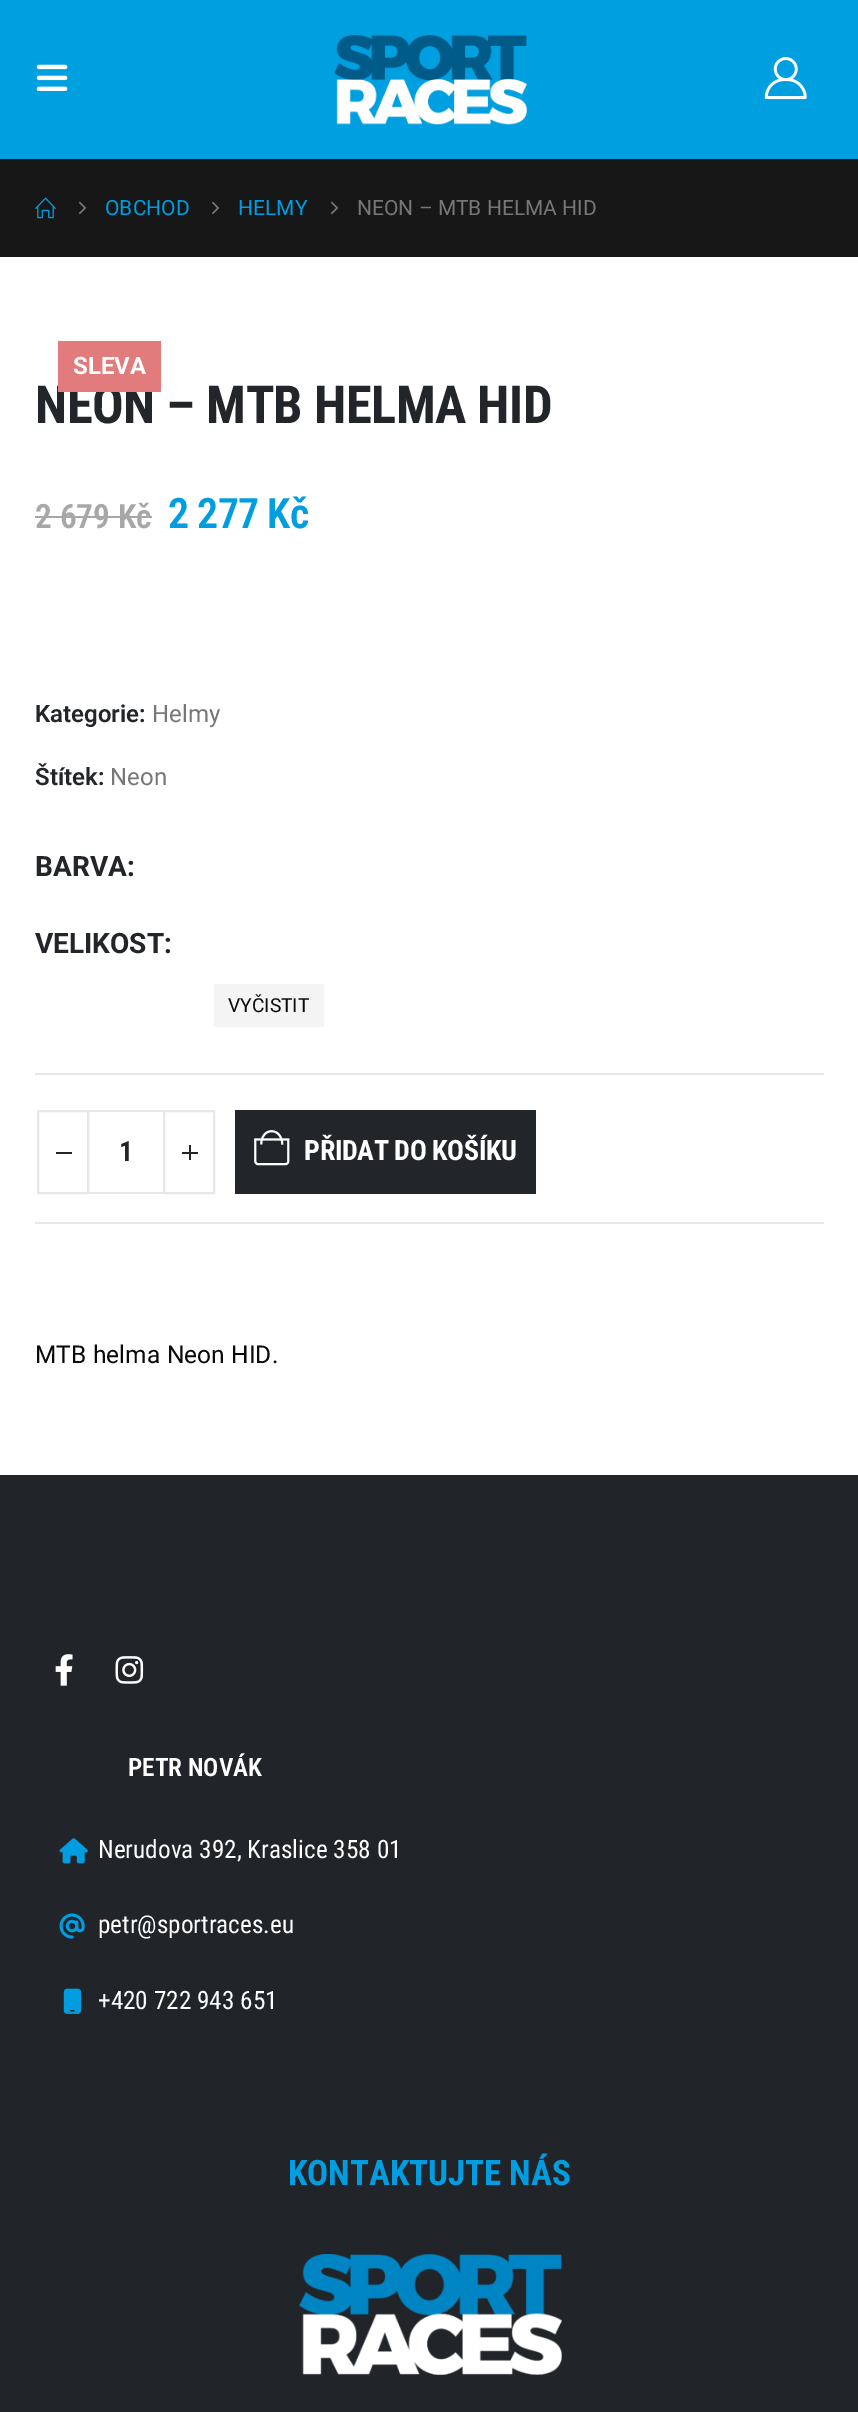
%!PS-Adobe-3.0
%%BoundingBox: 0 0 858 2412
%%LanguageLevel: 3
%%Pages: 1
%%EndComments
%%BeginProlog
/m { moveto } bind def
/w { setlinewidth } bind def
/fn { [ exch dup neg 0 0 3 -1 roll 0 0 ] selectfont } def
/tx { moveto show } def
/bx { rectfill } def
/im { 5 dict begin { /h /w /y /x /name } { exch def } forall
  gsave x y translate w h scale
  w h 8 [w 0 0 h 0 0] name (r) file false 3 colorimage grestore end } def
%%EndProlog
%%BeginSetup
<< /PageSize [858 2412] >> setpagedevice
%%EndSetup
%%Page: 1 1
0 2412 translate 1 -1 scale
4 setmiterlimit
1 setgray
0 0 858 2412 bx
0 0.624 0.878 setrgbcolor
0 0 858 159 bx
(image0.raw) 36 64 32 27 im
(image1.raw) 334 35 193 90 im
(image2.raw) 764 57 43 43 im
0.09 setgray
0 159 858 98 bx
(image3.raw) 35 197 21 22 im
(image4.raw) 78 201 9 14 im
/Roboto-Regular 21 fn
0 0.616 0.878 setrgbcolor
(OBCHOD) 105 215 tx
(image4.raw) 211 201 9 14 im
(HELMY) 238 215 tx
(image4.raw) 330 201 9 14 im
0.467 setgray
(NEON – MTB HELMA HID) 357 215 tx
/RobotoCondensed-Bold 52.5 fn
0.133 0.145 0.161 setrgbcolor
35 423 m -0.5 0 (NEON – MTB HELMA HID) ashow
0.886 0.486 0.486 setrgbcolor
58 341 103 51 bx
/Roboto-Bold 24 fn
1 setgray
(SLEVA) 73 374 tx
/RobotoCondensed-SemiBold 33.5 fn
0.655 setgray
(2 679 Kč) 35 528 tx
35 516 117 2 bx
/RobotoCondensed-SemiBold 42 fn
0 0.616 0.878 setrgbcolor
168 528 m -0.75 0 (2 277 Kč) ashow
/Roboto-SemiBold 24 fn
0.133 0.145 0.161 setrgbcolor
(Kategorie:) 35 722 tx
/Roboto-Regular 24 fn
0.467 setgray
(Helmy) 152 722 tx
/Roboto-SemiBold 24 fn
0.133 0.145 0.161 setrgbcolor
(Štítek:) 35 785 tx
/Roboto-Regular 24 fn
0.467 setgray
(Neon) 110 785 tx
/Roboto-Bold 28 fn
0.133 0.145 0.161 setrgbcolor
(BARVA:) 35 876 tx
(VELIKOST:) 35 953 tx
0.957 setgray
214 984 110 43 bx
/Roboto-Regular 19.25 fn
0.039 setgray
(VYČISTIT) 228 1012 tx
0.906 setgray
35 1073 789 2 bx
35 1222 789 2 bx
88 1110 77 2 bx
88 1192 77 2 bx
2 w
38 1111 50 82 rectstroke
0.133 0.145 0.161 setrgbcolor
56 1152 16 2 bx
/RobotoCondensed-Bold 28 fn
(1) 119 1161 tx
0.906 setgray
164 1111 50 82 rectstroke
0.133 0.145 0.161 setrgbcolor
182 1152 16 2 bx
189 1145 2 15 bx
235 1110 301 84 bx
(image5.raw) 254 1130 36 36 im
1 setgray
304 1160 m -0.4 0 (PŘIDAT DO KOŠÍKU) ashow
/Roboto-Regular 24.5 fn
0.039 setgray
35 1363 m 0.1 0 (MTB helma Neon HID.) ashow
0.129 0.145 0.161 setrgbcolor
0 1475 858 937 bx
(image6.raw) 55 1654 18 32 im
(image7.raw) 115 1656 29 28 im
/RobotoCondensed-SemiBold 25.25 fn
1 setgray
(PETR NOVÁK) 128 1776 tx
(image8.raw) 59 1838 29 26 im
/RobotoCondensed-Regular 25.25 fn
(Nerudova 392, Kraslice 358 01) 98 1858 tx
(image9.raw) 59 1913 26 26 im
(petr@sportraces.eu) 98 1933 tx
(image10.raw) 63 1988 19 26 im
(+420 722 943 651) 98 2009 tx
/RobotoCondensed-Bold 35 fn
0 0.616 0.878 setrgbcolor
(KONTAKTUJTE NÁS) 288 2185 tx
(image11.raw) 299 2254 263 121 im
showpage
%%EOF
